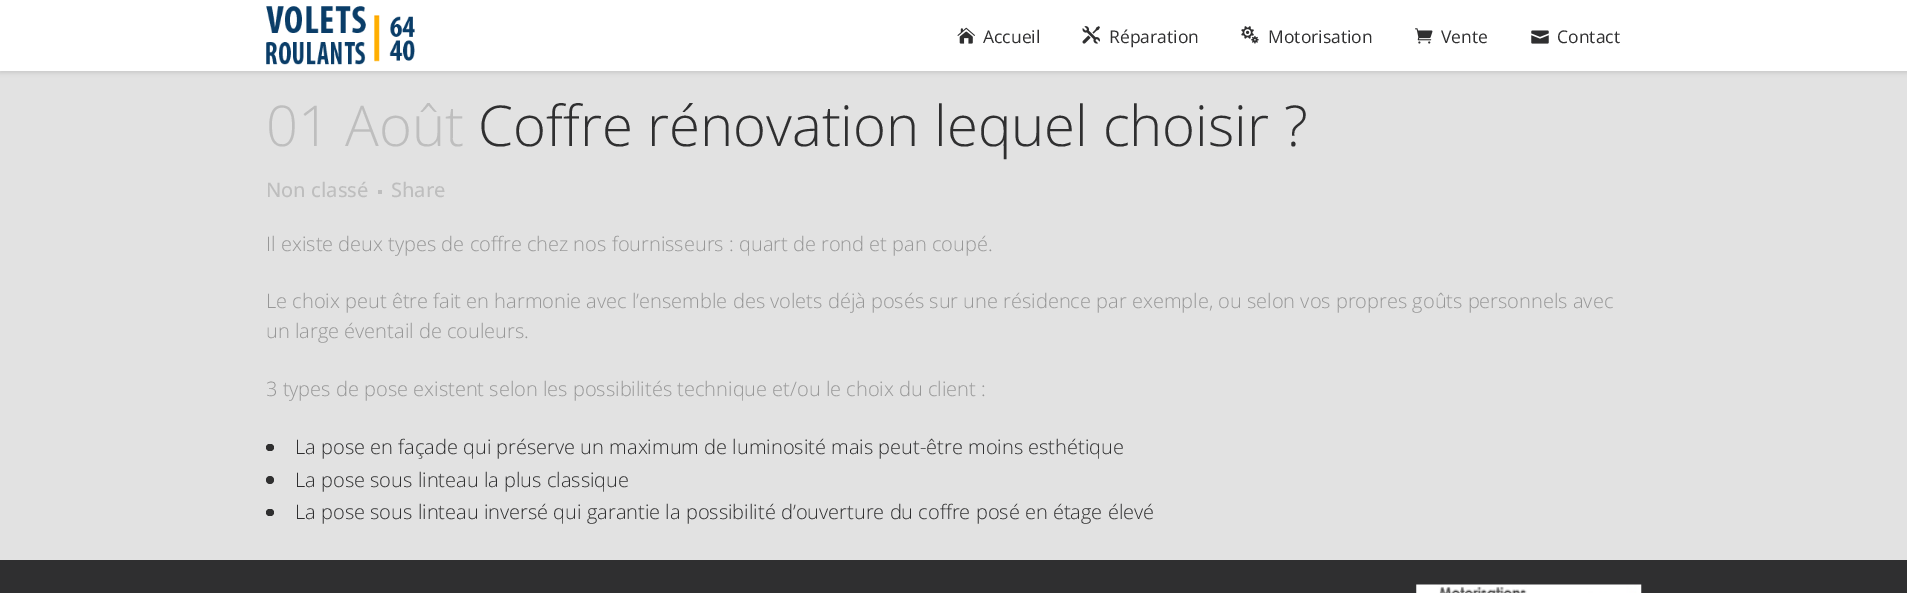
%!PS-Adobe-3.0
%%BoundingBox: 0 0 1907 593
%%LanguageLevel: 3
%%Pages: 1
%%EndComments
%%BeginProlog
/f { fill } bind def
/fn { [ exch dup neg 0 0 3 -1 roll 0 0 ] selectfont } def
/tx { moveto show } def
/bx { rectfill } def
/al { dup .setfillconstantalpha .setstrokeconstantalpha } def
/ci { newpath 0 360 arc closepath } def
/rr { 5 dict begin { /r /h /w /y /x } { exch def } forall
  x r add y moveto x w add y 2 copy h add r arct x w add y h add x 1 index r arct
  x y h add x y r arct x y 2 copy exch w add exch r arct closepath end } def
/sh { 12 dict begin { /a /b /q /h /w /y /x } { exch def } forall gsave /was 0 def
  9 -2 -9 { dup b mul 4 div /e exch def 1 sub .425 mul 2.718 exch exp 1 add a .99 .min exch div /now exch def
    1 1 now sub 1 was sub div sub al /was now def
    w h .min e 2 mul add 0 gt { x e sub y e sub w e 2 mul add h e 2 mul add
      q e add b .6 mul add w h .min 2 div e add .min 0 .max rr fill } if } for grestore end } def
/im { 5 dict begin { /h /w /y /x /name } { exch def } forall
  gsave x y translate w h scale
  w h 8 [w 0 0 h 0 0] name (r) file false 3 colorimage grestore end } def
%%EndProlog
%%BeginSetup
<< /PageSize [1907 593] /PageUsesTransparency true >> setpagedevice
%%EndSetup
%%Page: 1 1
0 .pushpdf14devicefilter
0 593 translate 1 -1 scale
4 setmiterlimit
0.886 setgray
0 0 1907 593 bx
0 setgray
0 1 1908 72 0 2 0.11 sh
1 setgray
0 0 1907 71 bx
(image0.raw) 266 6 149 59 im
(image1.raw) 957 27 18 17 im
/OpenSans-Regular 17.5 fn
0.184 0.184 0.188 setrgbcolor
(Accueil) 983 43 tx
(image2.raw) 1082 26 18 18 im
(Réparation) 1109 43 tx
(image3.raw) 1241 26 18 18 im
(Motorisation) 1268 43 tx
(image4.raw) 1415 28 18 16 im
(Vente) 1441 43 tx
(image5.raw) 1531 30 18 14 im
(Contact) 1557 43 tx
/OpenSans-Light 56.25 fn
0.745 setgray
(01 Août) 266 146 tx
0.184 0.184 0.188 setrgbcolor
(Coffre rénovation lequel choisir ?) 478 146 tx
/OpenSans-Medium 20 fn
0.745 setgray
(Non classé) 266 197 tx
378 190 4 4 bx
(Share) 391 197 tx
/OpenSans-Light 20 fn
0.592 setgray
(Il existe deux types de coffre chez nos fournisseurs : quart de rond et pan coupé.) 266 251 tx
(Le choix peut être fait en harmonie avec l’ensemble des volets déjà posés sur une résidence par exemple, ou selon vos propres goûts personnels avec) 266 308 tx
(un large éventail de couleurs.) 266 338 tx
(3 types de pose existent selon les possibilités technique et/ou le choix du client :) 266 396 tx
0.184 0.184 0.188 setrgbcolor
266 444 8 7 3.5 rr f
(La pose en façade qui préserve un maximum de luminosité mais peut-être moins esthétique) 295 454 tx
270 480 4 ci f
(La pose sous linteau la plus classique) 295 487 tx
266 509 8 7 3.5 rr f
(La pose sous linteau inversé qui garantie la possibilité d’ouverture du coffre posé en étage élevé) 295 519 tx
0 560 1907 33 bx
(image6.raw) 1416 584 226 9 im
.poppdf14devicefilter showpage
%%EOF
